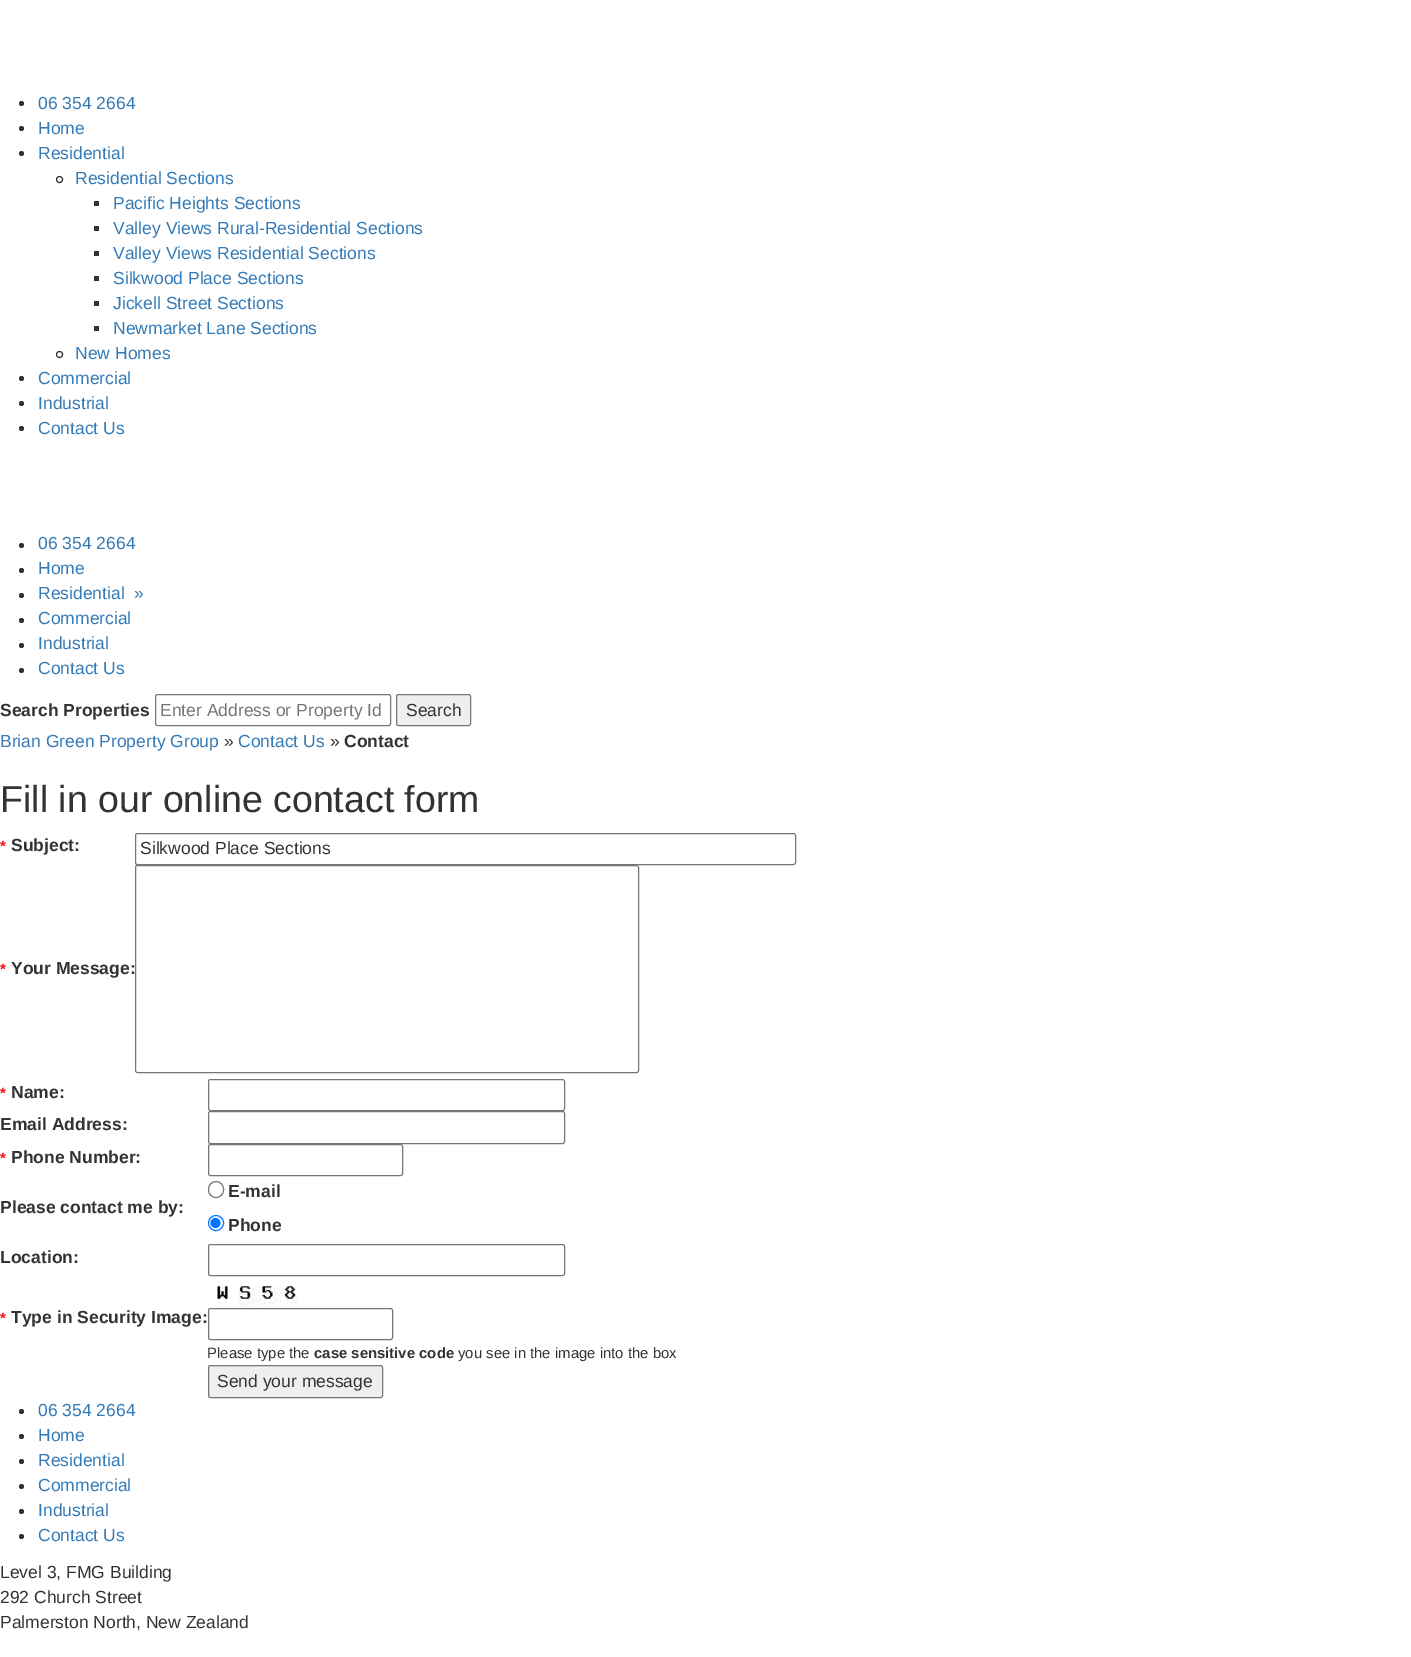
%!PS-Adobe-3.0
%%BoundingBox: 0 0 1411 1657
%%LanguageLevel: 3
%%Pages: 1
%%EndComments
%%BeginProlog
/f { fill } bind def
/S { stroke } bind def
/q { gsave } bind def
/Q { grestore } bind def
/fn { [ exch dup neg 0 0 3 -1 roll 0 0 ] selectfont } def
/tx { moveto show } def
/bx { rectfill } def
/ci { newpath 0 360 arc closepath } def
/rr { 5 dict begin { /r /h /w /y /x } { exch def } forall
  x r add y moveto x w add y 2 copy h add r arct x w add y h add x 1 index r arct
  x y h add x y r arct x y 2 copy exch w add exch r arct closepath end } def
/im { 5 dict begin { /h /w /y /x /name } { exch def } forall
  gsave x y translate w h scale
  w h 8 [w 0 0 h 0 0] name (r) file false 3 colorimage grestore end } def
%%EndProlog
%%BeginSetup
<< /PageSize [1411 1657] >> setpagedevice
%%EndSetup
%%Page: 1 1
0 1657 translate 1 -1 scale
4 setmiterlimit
1 setgray
0 0 1411 1657 bx
0.2 setgray
21.5 103.5 2.5 ci f
/LiberationSans-Regular 17.5 fn
0.2 0.478 0.718 setrgbcolor
(06 354 2664) 38 109 tx
0.2 setgray
21.5 128.5 2.5 ci f
0.2 0.478 0.718 setrgbcolor
(Home) 38 134 tx
0.2 setgray
21.5 153.5 2.5 ci f
0.2 0.478 0.718 setrgbcolor
(Residential) 38 159 tx
0.2 setgray
59.5 179.5 3 ci S
0.2 0.478 0.718 setrgbcolor
(Residential Sections) 75 184 tx
0.2 setgray
94 201 5 5 bx
0.2 0.478 0.718 setrgbcolor
(Pacific Heights Sections) 113 209 tx
0.2 setgray
94 226 5 5 bx
0.2 0.478 0.718 setrgbcolor
(Valley Views Rural-Residential Sections) 113 234 tx
0.2 setgray
94 251 5 5 bx
0.2 0.478 0.718 setrgbcolor
(Valley Views Residential Sections) 113 259 tx
0.2 setgray
94 276 5 5 bx
0.2 0.478 0.718 setrgbcolor
(Silkwood Place Sections) 113 284 tx
0.2 setgray
94 301 5 5 bx
0.2 0.478 0.718 setrgbcolor
(Jickell Street Sections) 113 309 tx
0.2 setgray
94 326 5 5 bx
0.2 0.478 0.718 setrgbcolor
(Newmarket Lane Sections) 113 334 tx
0.2 setgray
59.5 354.5 3 ci S
0.2 0.478 0.718 setrgbcolor
(New Homes) 75 359 tx
0.2 setgray
21.5 378.5 2.5 ci f
0.2 0.478 0.718 setrgbcolor
(Commercial) 38 384 tx
0.2 setgray
21.5 403.5 2.5 ci f
0.2 0.478 0.718 setrgbcolor
(Industrial) 38 409 tx
0.2 setgray
21.5 428.5 2.5 ci f
0.2 0.478 0.718 setrgbcolor
(Contact Us) 38 434 tx
0.2 setgray
21.5 545.5 2.5 ci f
0.2 0.478 0.718 setrgbcolor
(06 354 2664) 38 549 tx
0.2 setgray
21.5 570.5 2.5 ci f
0.2 0.478 0.718 setrgbcolor
(Home) 38 574 tx
0.2 setgray
21.5 595.5 2.5 ci f
0.2 0.478 0.718 setrgbcolor
(Residential) 38 599 tx
(») 134 599 tx
0.2 setgray
21.5 620.5 2.5 ci f
0.2 0.478 0.718 setrgbcolor
(Commercial) 38 624 tx
0.2 setgray
21.5 645.5 2.5 ci f
0.2 0.478 0.718 setrgbcolor
(Industrial) 38 649 tx
0.2 setgray
21.5 670.5 2.5 ci f
0.2 0.478 0.718 setrgbcolor
(Contact Us) 38 674 tx
/LiberationSans-Bold 17.5 fn
0.2 setgray
(Search Properties) 0 716 tx
0.463 setgray
155.5 694.5 235 31 2 rr S
/LiberationSans-Regular 17.5 fn
0.459 setgray
(Enter Address or Property Id) 160 716 tx
0.937 setgray
396.5 694.5 74 31 2 rr q f Q
0.463 setgray
S
0.2 setgray
(Search) 406 716 tx
0.2 0.478 0.718 setrgbcolor
(Brian Green Property Group) 0 747 tx
0.2 setgray
(») 224 747 tx
0.2 0.478 0.718 setrgbcolor
(Contact Us) 238 747 tx
0.2 setgray
(») 330 747 tx
/LiberationSans-Bold 17.5 fn
(Contact) 344 747 tx
/LiberationSans-Regular 37.5 fn
(Fill in our online contact form) 0 812 tx
/LiberationSans-Bold 14.9 fn
1 0 0 setrgbcolor
(*) 0 851 tx
/LiberationSans-Bold 17.5 fn
0.2 setgray
(Subject:) 11 851 tx
0.463 setgray
135.5 833.5 660 31 2 rr S
/LiberationSans-Regular 17.5 fn
0.2 setgray
(Silkwood Place Sections) 140 854 tx
/LiberationSans-Bold 14.9 fn
1 0 0 setrgbcolor
(*) 0 974 tx
/LiberationSans-Bold 17.5 fn
0.2 setgray
(Your Message:) 11 974 tx
0.463 setgray
135.5 865.5 503 207 2 rr S
/LiberationSans-Bold 14.9 fn
1 0 0 setrgbcolor
(*) 0 1098 tx
/LiberationSans-Bold 17.5 fn
0.2 setgray
(Name:) 11 1098 tx
0.463 setgray
208.5 1079.5 356 31 2 rr S
0.2 setgray
(Email Address:) 0 1130 tx
0.463 setgray
208.5 1111.5 356 32 2 rr S
/LiberationSans-Bold 14.9 fn
1 0 0 setrgbcolor
(*) 0 1163 tx
/LiberationSans-Bold 17.5 fn
0.2 setgray
(Phone Number:) 11 1163 tx
0.463 setgray
208.5 1144.5 194 31 2 rr S
0.2 setgray
(Please contact me by:) 0 1213 tx
0.463 setgray
208.5 1181.5 15 16 7.5 rr S
0.2 setgray
(E-mail) 228 1197 tx
0 0.459 1 setrgbcolor
216 1223 7.5 ci S
215.5 1223 5 ci f
0.2 setgray
(Phone) 228 1231 tx
(Location:) 0 1263 tx
0.463 setgray
208.5 1244.5 356 31 2 rr S
/LiberationSans-Bold 14.9 fn
1 0 0 setrgbcolor
(*) 0 1323 tx
/LiberationSans-Bold 17.5 fn
0.2 setgray
(Type in Security Image:) 11 1323 tx
(image0.raw) 217 1286 81 21 im
0.463 setgray
208.5 1308.5 184 31 2 rr S
/LiberationSans-Regular 14.9 fn
0.2 setgray
(Please type the) 207 1358 tx
/LiberationSans-Bold 14.9 fn
(case sensitive code) 314 1358 tx
/LiberationSans-Regular 14.9 fn
(you see in the image into the box) 458 1358 tx
0.937 setgray
208.5 1365.5 174 32 2 rr q f Q
0.463 setgray
S
/LiberationSans-Regular 17.5 fn
0.2 setgray
(Send your message) 217 1387 tx
21.5 1411.5 2.5 ci f
0.2 0.478 0.718 setrgbcolor
(06 354 2664) 38 1416 tx
0.2 setgray
21.5 1436.5 2.5 ci f
0.2 0.478 0.718 setrgbcolor
(Home) 38 1441 tx
0.2 setgray
21.5 1461.5 2.5 ci f
0.2 0.478 0.718 setrgbcolor
(Residential) 38 1466 tx
0.2 setgray
21.5 1486.5 2.5 ci f
0.2 0.478 0.718 setrgbcolor
(Commercial) 38 1491 tx
0.2 setgray
21.5 1511.5 2.5 ci f
0.2 0.478 0.718 setrgbcolor
(Industrial) 38 1516 tx
0.2 setgray
21.5 1536.5 2.5 ci f
0.2 0.478 0.718 setrgbcolor
(Contact Us) 38 1541 tx
0.2 setgray
(Level 3, FMG Building) 0 1578 tx
(292 Church Street) 0 1603 tx
(Palmerston North, New Zealand) 0 1628 tx
showpage
%%EOF
